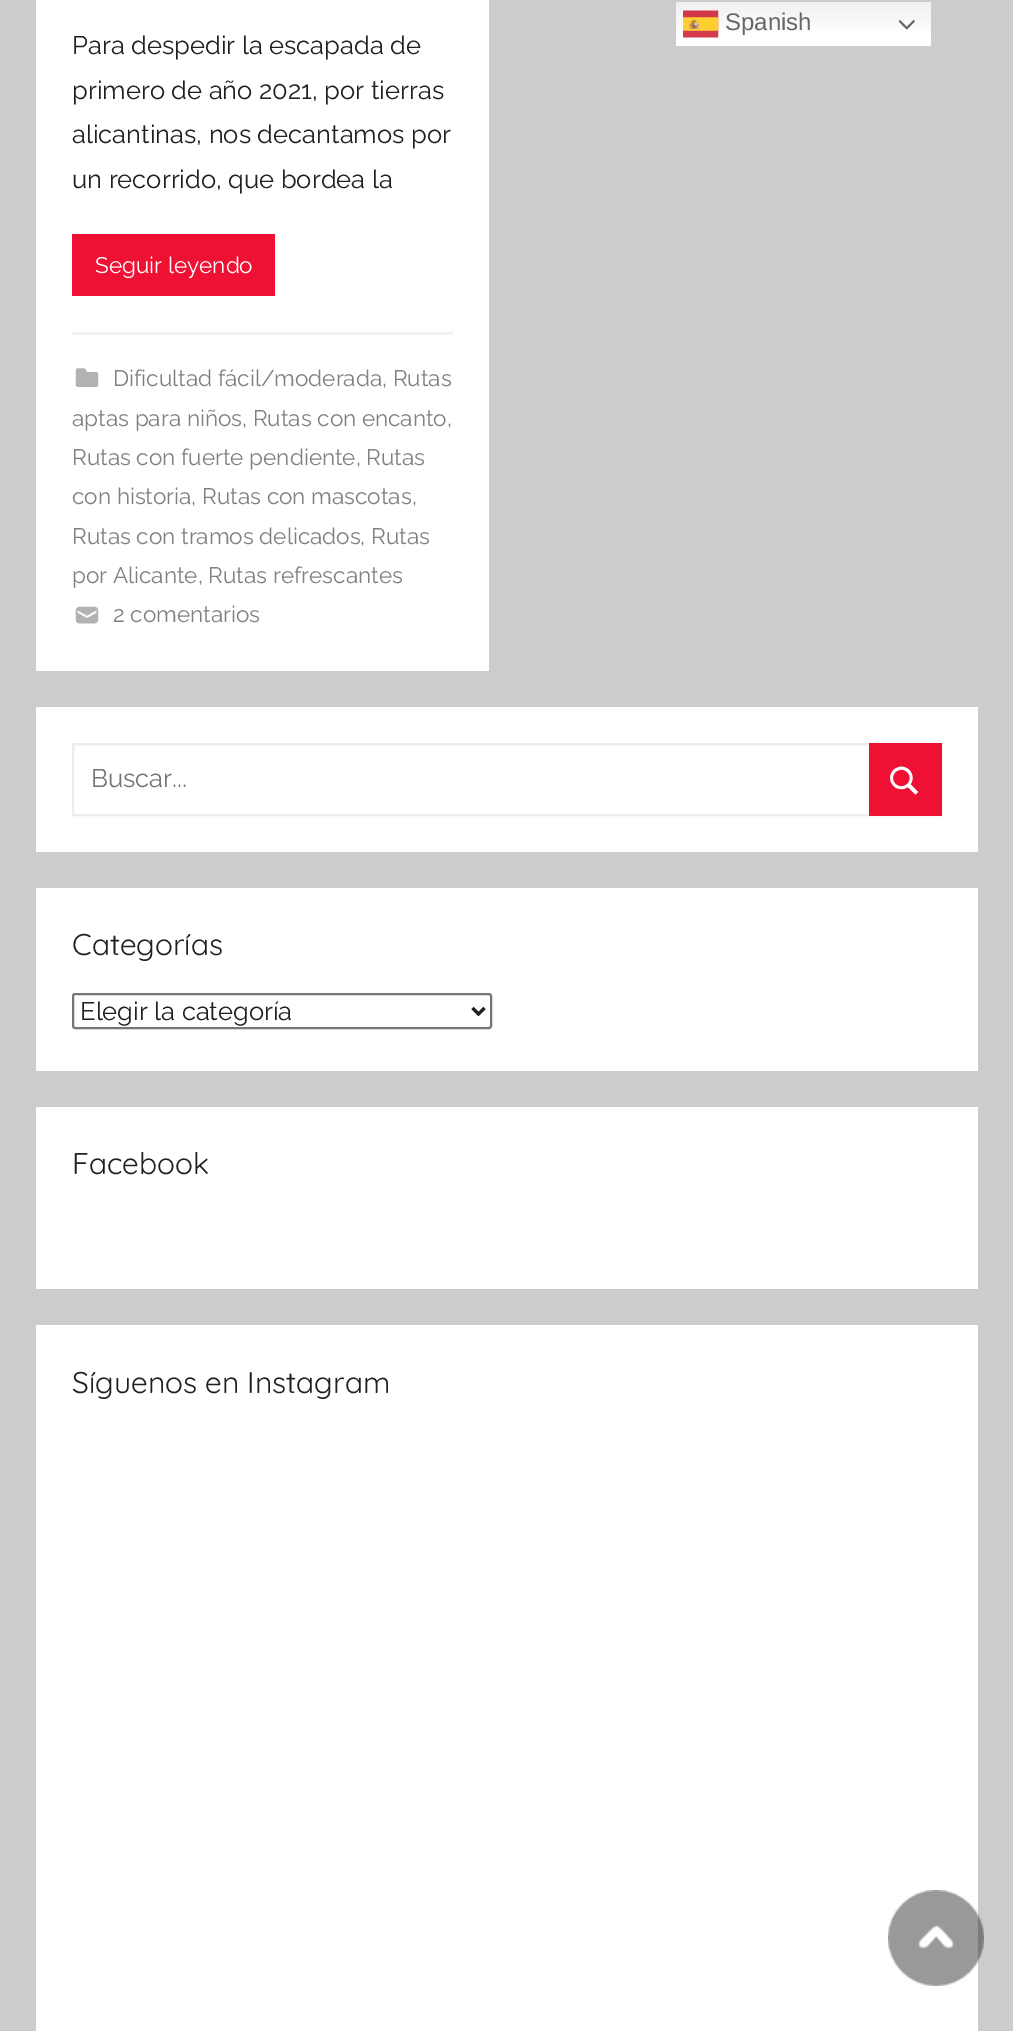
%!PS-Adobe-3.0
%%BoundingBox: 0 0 1013 2031
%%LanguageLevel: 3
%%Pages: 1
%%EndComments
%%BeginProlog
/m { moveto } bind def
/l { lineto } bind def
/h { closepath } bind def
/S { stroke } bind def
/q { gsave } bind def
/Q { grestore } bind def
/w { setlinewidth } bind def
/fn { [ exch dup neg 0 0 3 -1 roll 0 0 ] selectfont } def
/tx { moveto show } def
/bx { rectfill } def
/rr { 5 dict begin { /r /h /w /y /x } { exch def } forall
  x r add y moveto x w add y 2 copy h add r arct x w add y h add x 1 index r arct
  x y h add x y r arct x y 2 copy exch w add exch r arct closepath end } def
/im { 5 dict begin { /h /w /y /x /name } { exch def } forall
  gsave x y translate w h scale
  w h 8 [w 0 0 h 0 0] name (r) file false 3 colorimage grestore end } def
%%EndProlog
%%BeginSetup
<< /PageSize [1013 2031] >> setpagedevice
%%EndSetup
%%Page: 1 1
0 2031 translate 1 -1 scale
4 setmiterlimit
0.8 setgray
0 0 1013 2031 bx
q 676 2 m 931 2 l 931 46 l 676 46 l h clip newpath
<< /ShadingType 2 /ColorSpace /DeviceRGB /Coords [803 0 803 48] /Extend [true true] /Function << /FunctionType 3 /Domain [0 1] /Functions [<< /FunctionType 2 /Domain [0 1] /C0 [0.937 0.937 0.937] /C1 [1 1 1] /N 1 >> << /FunctionType 2 /Domain [0 1] /C0 [1 1 1] /C1 [1 1 1] /N 1 >>] /Bounds [0.7] /Encode [0 1 0 1] >> >> shfill Q
(image0.raw) 683 10 36 28 im
/LiberationSans-Regular 24 fn
0.4 setgray
(Spanish) 725 30 tx
(image1.raw) 899 20 16 10 im
1 setgray
36 0 453 671 bx
/Raleway-Thin 25.5 fn
0.125 setgray
(Para despedir la escapada de) 72 54 tx
(primero de año 2021, por tierras) 72 99 tx
(alicantinas, nos decantamos por) 72 143 tx
(un recorrido, que bordea la) 72 188 tx
0.933 0.067 0.2 setrgbcolor
72 234 203 62 bx
/Raleway-Thin 22.5 fn
1 setgray
(Seguir leyendo) 95 273 tx
0.949 setgray
72 332 381 3 bx
(image2.raw) 75 368 24 19 im
0.502 setgray
(Dificultad fácil/moderada, Rutas) 113 386 tx
(aptas para niños, Rutas con encanto,) 72 426 tx
(Rutas con fuerte pendiente, Rutas) 72 465 tx
(con historia, Rutas con mascotas,) 72 504 tx
(Rutas con tramos delicados, Rutas) 72 544 tx
(por Alicante, Rutas refrescantes) 72 583 tx
(image3.raw) 75 606 24 18 im
(2 comentarios) 113 622 tx
1 setgray
36 707 942 145 bx
0.925 setgray
2 w
73 744 868 71 rectstroke
/Raleway-Thin 25.5 fn
0.459 setgray
(Buscar...) 91 787 tx
0.933 0.067 0.2 setrgbcolor
869 743 73 73 bx
(image4.raw) 890 766 29 29 im
1 setgray
36 888 942 183 bx
/Quicksand-Light 30 fn
0.125 setgray
(Categorías) 72 955 tx
0.463 setgray
73 994 418 34 2 rr S
0.125 setgray
3 w
472.5 1008 m 478.5 1014 l 484.5 1008 l S
/Raleway-Thin 25.5 fn
(Elegir la categoría) 80 1020 tx
1 setgray
36 1107 942 182 bx
/Quicksand-Light 30 fn
0.125 setgray
(Facebook) 72 1174 tx
1 setgray
36 1325 942 706 bx
0.125 setgray
(Síguenos en Instagram) 72 1393 tx
(image5.raw) 888 1890 96 96 im
showpage
%%EOF
